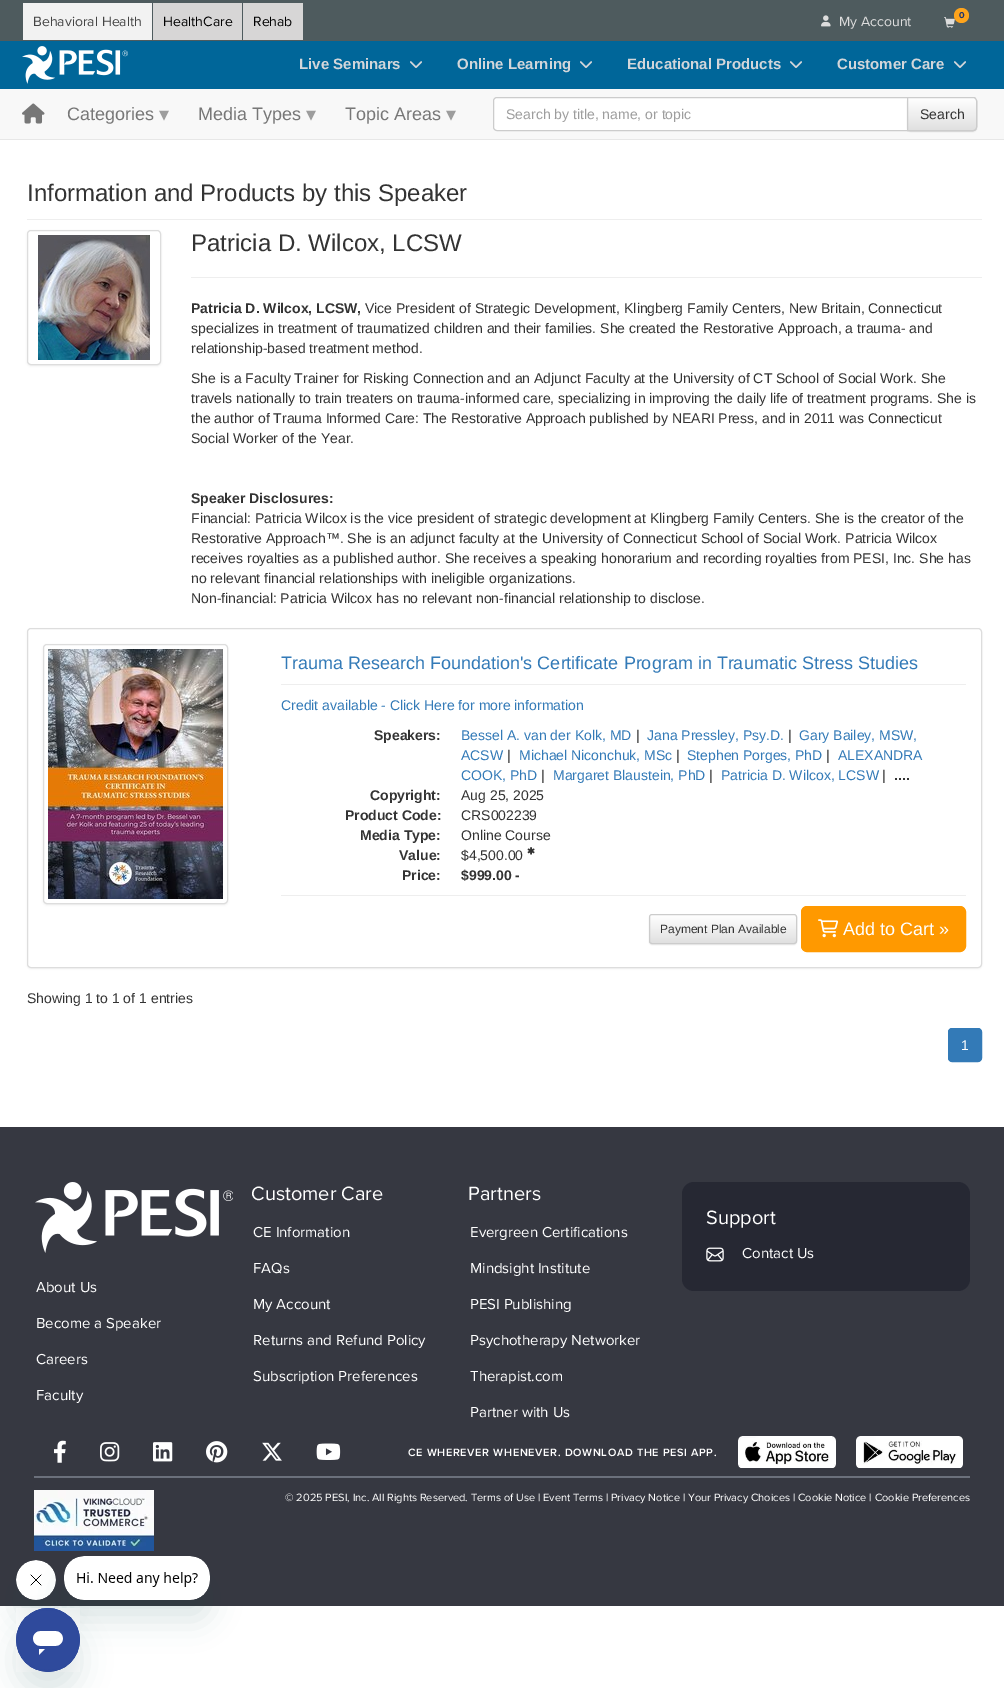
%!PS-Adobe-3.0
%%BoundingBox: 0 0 1004 1688
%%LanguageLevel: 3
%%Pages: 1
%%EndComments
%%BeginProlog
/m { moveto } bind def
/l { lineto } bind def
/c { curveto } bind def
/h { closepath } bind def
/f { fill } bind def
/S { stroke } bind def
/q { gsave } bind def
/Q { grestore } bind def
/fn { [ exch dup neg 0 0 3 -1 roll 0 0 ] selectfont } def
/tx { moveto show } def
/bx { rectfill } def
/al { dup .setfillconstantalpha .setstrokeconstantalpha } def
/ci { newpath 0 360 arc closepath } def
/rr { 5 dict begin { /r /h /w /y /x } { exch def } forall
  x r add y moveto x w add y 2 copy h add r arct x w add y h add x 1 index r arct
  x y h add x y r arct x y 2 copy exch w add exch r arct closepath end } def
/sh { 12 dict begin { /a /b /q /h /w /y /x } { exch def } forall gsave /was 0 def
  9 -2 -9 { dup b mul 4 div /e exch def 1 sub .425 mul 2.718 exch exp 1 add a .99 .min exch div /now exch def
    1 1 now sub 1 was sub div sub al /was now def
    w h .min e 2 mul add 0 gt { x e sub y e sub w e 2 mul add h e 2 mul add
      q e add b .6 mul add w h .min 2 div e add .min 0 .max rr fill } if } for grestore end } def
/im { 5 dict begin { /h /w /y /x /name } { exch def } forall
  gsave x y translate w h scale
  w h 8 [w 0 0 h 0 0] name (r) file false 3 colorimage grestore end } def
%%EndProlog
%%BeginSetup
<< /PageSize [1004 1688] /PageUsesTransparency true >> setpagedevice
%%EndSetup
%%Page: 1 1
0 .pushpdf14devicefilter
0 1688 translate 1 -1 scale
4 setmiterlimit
1 setgray
0 0 1004 1688 bx
0.306 0.357 0.369 setrgbcolor
0 0 1004 41 bx
0.949 setgray
23 3 129 37 bx
/ProximaNova-Regular 14 fn
0.267 setgray
(Behavioral Health) 33 26 tx
0.843 0.839 0.839 setrgbcolor
153 3 89 37 bx
0 setgray
(HealthCare) 163 26 tx
0.843 0.839 0.839 setrgbcolor
243 3 60 37 bx
0 setgray
(Rehab) 253 26 tx
(image0.raw) 944 17 11 11 im
1 0.643 0.11 setrgbcolor
961.5 15.5 7.5 ci f
/ProximaNova-Bold 9 fn
0.106 0.196 0.439 setrgbcolor
(0) 959 18 tx
(image1.raw) 821 15 10 12 im
/ProximaNova-Regular 14 fn
0.867 setgray
(My Account) 839 26 tx
0 0.4 0.6 setrgbcolor
0 41 1004 48 bx
(image2.raw) 22 46 106 38 im
/LiberationSans-Bold 15 fn
0.827 0.839 0.855 setrgbcolor
(Live Seminars) 299 69 tx
(image3.raw) 410 61 12 7 im
(Online Learning) 457 69 tx
(image3.raw) 580 61 12 7 im
(Educational Products) 627 69 tx
(image3.raw) 790 61 12 7 im
(Customer Care) 837 69 tx
(image3.raw) 954 61 12 7 im
0.973 setgray
0 89 1004 50 bx
0.906 setgray
0 139 1004 1 bx
(image4.raw) 22 103 23 21 im
/LiberationSans-Regular 18 fn
0.467 setgray
(Categories) 67 120 tx
/DejaVuSans-Regular 20 fn
0.616 setgray
(▾) 159 121 tx
/LiberationSans-Regular 18 fn
0.467 setgray
(Media Types) 198 120 tx
/DejaVuSans-Regular 20 fn
0.616 setgray
(▾) 306 121 tx
/LiberationSans-Regular 18 fn
0.467 setgray
(Topic Areas) 345 120 tx
/DejaVuSans-Regular 20 fn
0.616 setgray
(▾) 446 121 tx
1 setgray
493.5 97.5 483 33 3.5 rr q f Q
0.8 setgray
S
/LiberationSans-Regular 14 fn
0.616 setgray
(Search by title, name, or topic) 506 119 tx
0 setgray
907 98 70 34 4 0.5 0.07 sh
q
907 97 m 973 97 l 975 97 977 99 977 101 c 977 127 l 977 129 975 131 973 131 c 907 131 l h clip newpath
q 908 98 m 977 98 l 977 130 l 908 130 l h clip newpath
<< /ShadingType 2 /ColorSpace /DeviceRGB /Coords [942 98 942 130] /Extend [true true] /Function << /FunctionType 2 /Domain [0 1] /C0 [1 1 1] /C1 [0.878 0.878 0.878] /N 1 >> >> shfill Q
Q
0.8 setgray
907.5 97.5 m 973 97.5 l 975 97.5 976.5 99 976.5 101 c 976.5 127 l 976.5 129 975 130.5 973 130.5 c 907.5 130.5 l h S
0.2 setgray
(Search) 920 119 tx
0.933 setgray
27 219 955 1 bx
/LiberationSans-Regular 24 fn
0.2 setgray
(Information and Products by this Speaker) 27 201 tx
0 setgray
27 231 134 135 4 1 0.07 sh
1 setgray
27.5 230.5 133 134 3.5 rr q f Q
0.867 setgray
S
(image5.raw) 38 235 112 125 im
0.2 setgray
(Patricia D. Wilcox, LCSW) 191 251 tx
0.933 setgray
191 277 791 1 bx
/LiberationSans-Bold 14 fn
0.2 setgray
(Patricia D. Wilcox, LCSW,) 191 313 tx
/LiberationSans-Regular 14 fn
(Vice President of Strategic Development, Klingberg Family Centers, New Britain, Connecticut) 365 313 tx
(specializes in treatment of traumatized children and their families. She created the Restorative Approach, a trauma- and) 191 333 tx
(relationship-based treatment method.) 191 353 tx
(She is a Faculty Trainer for Risking Connection and an Adjunct Faculty at the University of CT School of Social Work. She) 191 383 tx
(travels nationally to train treaters on trauma-informed care, specializing in improving the daily life of treatment programs. She is) 191 403 tx
(the author of Trauma Informed Care: The Restorative Approach published by NEARI Press, and in 2011 was Connecticut) 191 423 tx
(Social Worker of the Year.) 191 443 tx
/LiberationSans-Bold 14 fn
(Speaker Disclosures:) 191 503 tx
/LiberationSans-Regular 14 fn
(Financial: Patricia Wilcox is the vice president of strategic development at Klingberg Family Centers. She is the creator of the) 191 523 tx
(Restorative Approach™. She is an adjunct faculty at the University of Connecticut School of Social Work. Patricia Wilcox) 191 543 tx
(receives royalties as a published author. She receives a speaking honorarium and recording royalties from PESI, Inc. She has) 191 563 tx
(no relevant financial relationships with ineligible organizations.) 191 583 tx
(Non-financial: Patricia Wilcox has no relevant non-financial relationship to disclose.) 191 603 tx
0 setgray
27 629 955 340 4 1 0.05 sh
1 setgray
27.5 628.5 954 339 3.5 rr q f Q
0.867 setgray
S
0 setgray
43 645 185 260 4 1 0.07 sh
1 setgray
43.5 644.5 184 259 3.5 rr q f Q
0.867 setgray
S
(image6.raw) 48 649 175 250 im
/LiberationSans-Regular 18 fn
0.2 0.478 0.718 setrgbcolor
(Trauma Research Foundation's Certificate Program in Traumatic Stress Studies) 281 669 tx
0.933 setgray
281 684 685 1 bx
/LiberationSans-Regular 14 fn
0.2 0.478 0.718 setrgbcolor
(Credit available - Click Here for more information) 281 710 tx
/LiberationSans-Bold 14 fn
0.2 setgray
(Speakers:) 374 740 tx
/LiberationSans-Regular 14 fn
0.2 0.478 0.718 setrgbcolor
(Bessel A. van der Kolk, MD) 461 740 tx
0.2 setgray
(|) 636 740 tx
0.2 0.478 0.718 setrgbcolor
(Jana Pressley, Psy.D.) 647 740 tx
0.2 setgray
(|) 788 740 tx
0.2 0.478 0.718 setrgbcolor
(Gary Bailey, MSW,) 799 740 tx
(ACSW) 461 760 tx
0.2 setgray
(|) 507 760 tx
0.2 0.478 0.718 setrgbcolor
(Michael Niconchuk, MSc) 519 760 tx
0.2 setgray
(|) 676 760 tx
0.2 0.478 0.718 setrgbcolor
(Stephen Porges, PhD) 687 760 tx
0.2 setgray
(|) 826 760 tx
0.2 0.478 0.718 setrgbcolor
(ALEXANDRA) 838 760 tx
(COOK, PhD) 461 780 tx
0.2 setgray
(|) 541 780 tx
0.2 0.478 0.718 setrgbcolor
(Margaret Blaustein, PhD) 553 780 tx
0.2 setgray
(|) 709 780 tx
0.2 0.478 0.718 setrgbcolor
(Patricia D. Wilcox, LCSW) 721 780 tx
0.2 setgray
(|) 882 780 tx
/LiberationSans-Bold 14 fn
(....) 894 780 tx
(Copyright:) 370 800 tx
/LiberationSans-Regular 14 fn
(Aug 25, 2025) 461 800 tx
/LiberationSans-Bold 14 fn
(Product Code:) 345 820 tx
/LiberationSans-Regular 14 fn
(CRS002239) 461 820 tx
/LiberationSans-Bold 14 fn
(Media Type:) 360 840 tx
/LiberationSans-Regular 14 fn
(Online Course) 461 840 tx
/LiberationSans-Bold 14 fn
(Value:) 399 860 tx
/LiberationSans-Regular 14 fn
($4,500.00) 461 860 tx
(image7.raw) 527 847 8 8 im
/LiberationSans-Bold 14 fn
(Price:) 402 880 tx
($999.00 -) 461 880 tx
0.933 setgray
281 895 685 1 bx
0 setgray
649 915 148 30 3 0.5 0.07 sh
q
649 914 148 30 3 rr clip newpath
q 649 915 m 797 915 l 797 943 l 649 943 l h clip newpath
<< /ShadingType 2 /ColorSpace /DeviceRGB /Coords [723 915 723 943] /Extend [true true] /Function << /FunctionType 2 /Domain [0 1] /C0 [1 1 1] /C1 [0.878 0.878 0.878] /N 1 >> >> shfill Q
Q
0.8 setgray
649.5 914.5 147 29 2.5 rr S
/LiberationSans-Regular 12 fn
0.2 setgray
(Payment Plan Available) 660 933 tx
1 0.6 0 setrgbcolor
801.5 906.5 164 45 5.5 rr q f Q
S
(image8.raw) 818 919 21 19 im
/LiberationSans-Regular 18 fn
1 setgray
(Add to Cart ») 843 935 tx
/LiberationSans-Regular 14 fn
0.2 setgray
(Showing 1 to 1 of 1 entries) 27 1003 tx
0.2 0.478 0.718 setrgbcolor
948.5 1028.5 33 33 3.5 rr q f Q
S
1 setgray
(1) 961 1050 tx
0.212 0.22 0.255 setrgbcolor
0 1127 1004 479 bx
(image9.raw) 35 1182 198 71 im
/ProximaNova-Regular 15 fn
1 setgray
(About Us) 36 1292 tx
(Become a Speaker) 36 1328 tx
(Careers) 36 1364 tx
(Faculty) 36 1400 tx
/ProximaNova-Regular 20 fn
(Customer Care) 251 1200 tx
/ProximaNova-Regular 15 fn
(CE Information) 253 1237 tx
(FAQs) 253 1273 tx
(My Account) 253 1309 tx
(Returns and Refund Policy) 253 1345 tx
(Subscription Preferences) 253 1381 tx
/ProximaNova-Regular 20 fn
(Partners) 468 1200 tx
/ProximaNova-Regular 15 fn
(Evergreen Certifications) 470 1237 tx
(Mindsight Institute) 470 1273 tx
(PESI Publishing) 470 1309 tx
(Psychotherapy Networker) 470 1345 tx
(Therapist.com) 470 1381 tx
(Partner with Us) 470 1417 tx
0.149 0.157 0.2 setrgbcolor
682 1182 288 109 12 rr f
/ProximaNova-Regular 20 fn
1 setgray
(Support) 706 1224 tx
(image10.raw) 706 1247 18 15 im
/ProximaNova-Regular 15 fn
(Contact Us) 742 1258 tx
(image11.raw) 54 1440 12 23 im
(image12.raw) 100 1442 20 20 im
(image13.raw) 153 1442 20 20 im
(image14.raw) 206 1441 22 22 im
(image15.raw) 262 1442 20 19 im
(image16.raw) 316 1443 25 17 im
/ProximaNova-SemiBold 11 fn
408 1456 m 0.65 0 (CE WHEREVER WHENEVER. DOWNLOAD THE PESI APP.) ashow
(image17.raw) 738 1436 98 32 im
(image18.raw) 856 1436 107 32 im
0.42 0.439 0.482 setrgbcolor
34 1476 936 2 bx
(image19.raw) 34 1490 120 61 im
/ProximaNova-Regular 11 fn
1 setgray
(© 2025 PESI, Inc. All Rights Reserved. Terms of Use | Event Terms | Privacy Notice | Your Privacy Choices | Cookie Notice | Cookie Preferences) 285 1501 tx
0.09 0.286 0.302 setrgbcolor
16 1580 40 40 20 15 0.15 sh
(image21.raw) 16 1560 40 40 im
64 1576 146 44 20 15 0.15 sh
(image20.raw) 64 1556 146 44 im
16 1628 64 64 32 15 0.15 sh
(image22.raw) 16 1608 64 64 im
.poppdf14devicefilter showpage
%%EOF
